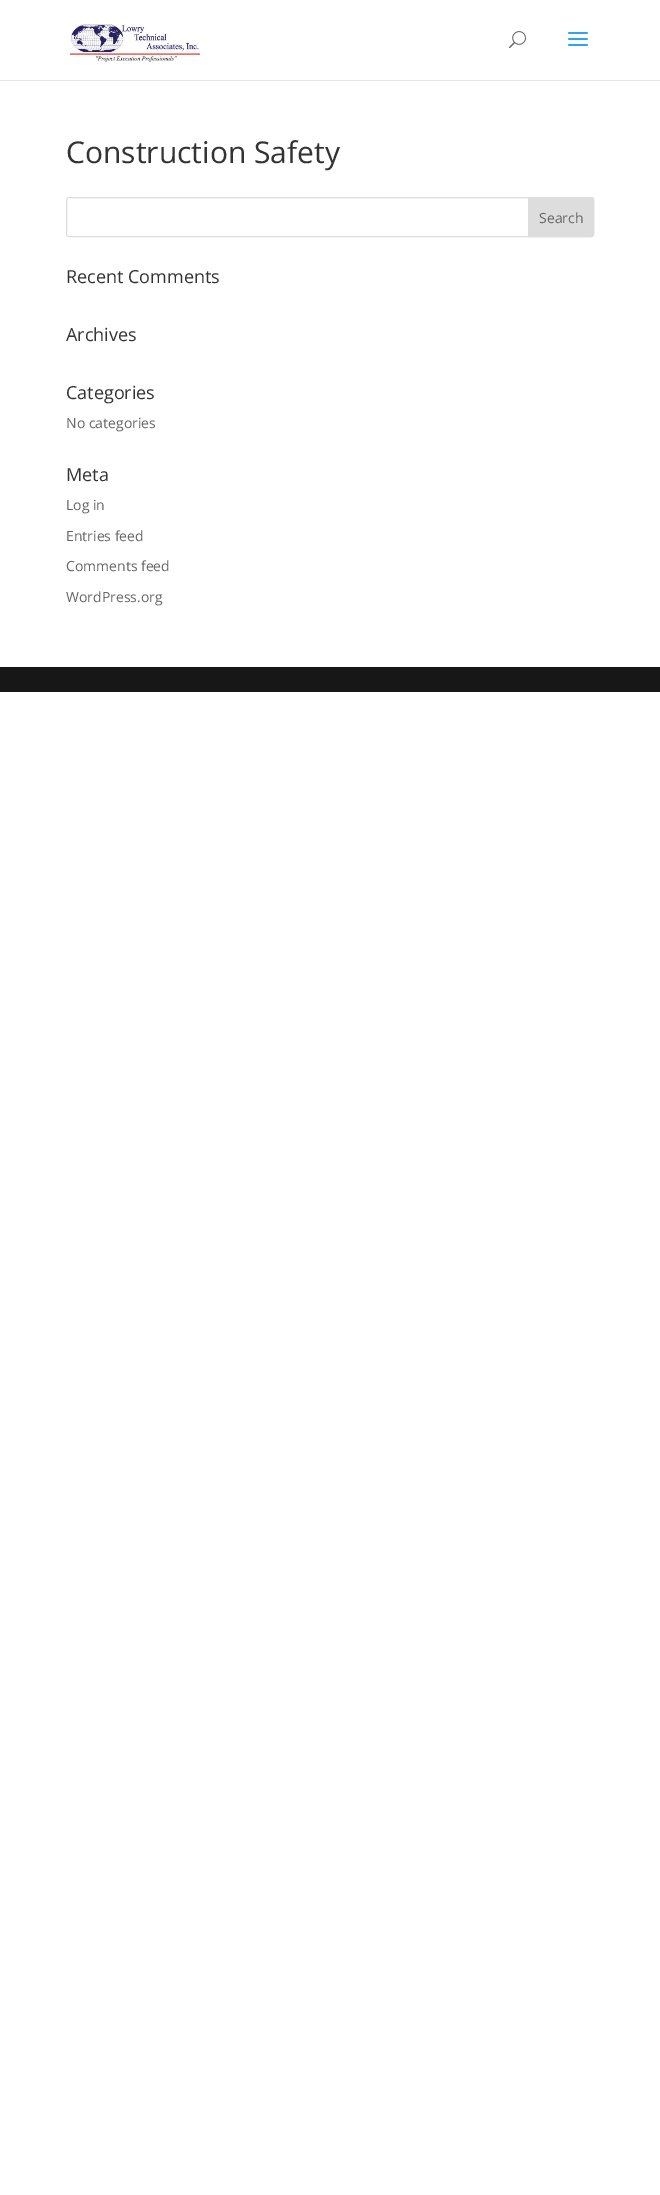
%!PS-Adobe-3.0
%%BoundingBox: 0 0 660 2195
%%LanguageLevel: 3
%%Pages: 1
%%EndComments
%%BeginProlog
/m { moveto } bind def
/l { lineto } bind def
/c { curveto } bind def
/h { closepath } bind def
/f { fill } bind def
/S { stroke } bind def
/q { gsave } bind def
/Q { grestore } bind def
/fn { [ exch dup neg 0 0 3 -1 roll 0 0 ] selectfont } def
/tx { moveto show } def
/bx { rectfill } def
/rr { 5 dict begin { /r /h /w /y /x } { exch def } forall
  x r add y moveto x w add y 2 copy h add r arct x w add y h add x 1 index r arct
  x y h add x y r arct x y 2 copy exch w add exch r arct closepath end } def
/im { 5 dict begin { /h /w /y /x /name } { exch def } forall
  gsave x y translate w h scale
  w h 8 [w 0 0 h 0 0] name (r) file false 3 colorimage grestore end } def
%%EndProlog
%%BeginSetup
<< /PageSize [660 2195] >> setpagedevice
%%EndSetup
%%Page: 1 1
0 2195 translate 1 -1 scale
4 setmiterlimit
1 setgray
0 0 660 2195 bx
0.902 setgray
0 80 660 1 bx
(image0.raw) 70 24 130 38 im
(image1.raw) 509 31 17 18 im
(image2.raw) 568 32 20 14 im
/OpenSans-Regular 30 fn
0.2 setgray
(Construction Safety) 66 163 tx
0.867 setgray
66.5 197.5 527 39 2.5 rr S
528.5 197.5 m 591 197.5 l 592.5 197.5 593.5 198.5 593.5 200 c 593.5 234 l 593.5 235.5 592.5 236.5 591 236.5 c 528.5 236.5 l h q f Q
S
/OpenSans-Regular 14 fn
0.4 setgray
(Search) 539 223 tx
/OpenSans-Regular 18 fn
0.2 setgray
(Recent Comments) 66 283 tx
(Archives) 66 341 tx
(Categories) 66 399 tx
/OpenSans-Regular 14 fn
0.4 setgray
(No categories) 66 428 tx
/OpenSans-Regular 18 fn
0.2 setgray
(Meta) 66 481 tx
/OpenSans-Regular 14 fn
0.4 setgray
(Log in) 66 510 tx
(Entries feed) 66 541 tx
(Comments feed) 66 571 tx
(WordPress.org) 66 602 tx
0.09 setgray
0 667 660 25 bx
showpage
%%EOF
